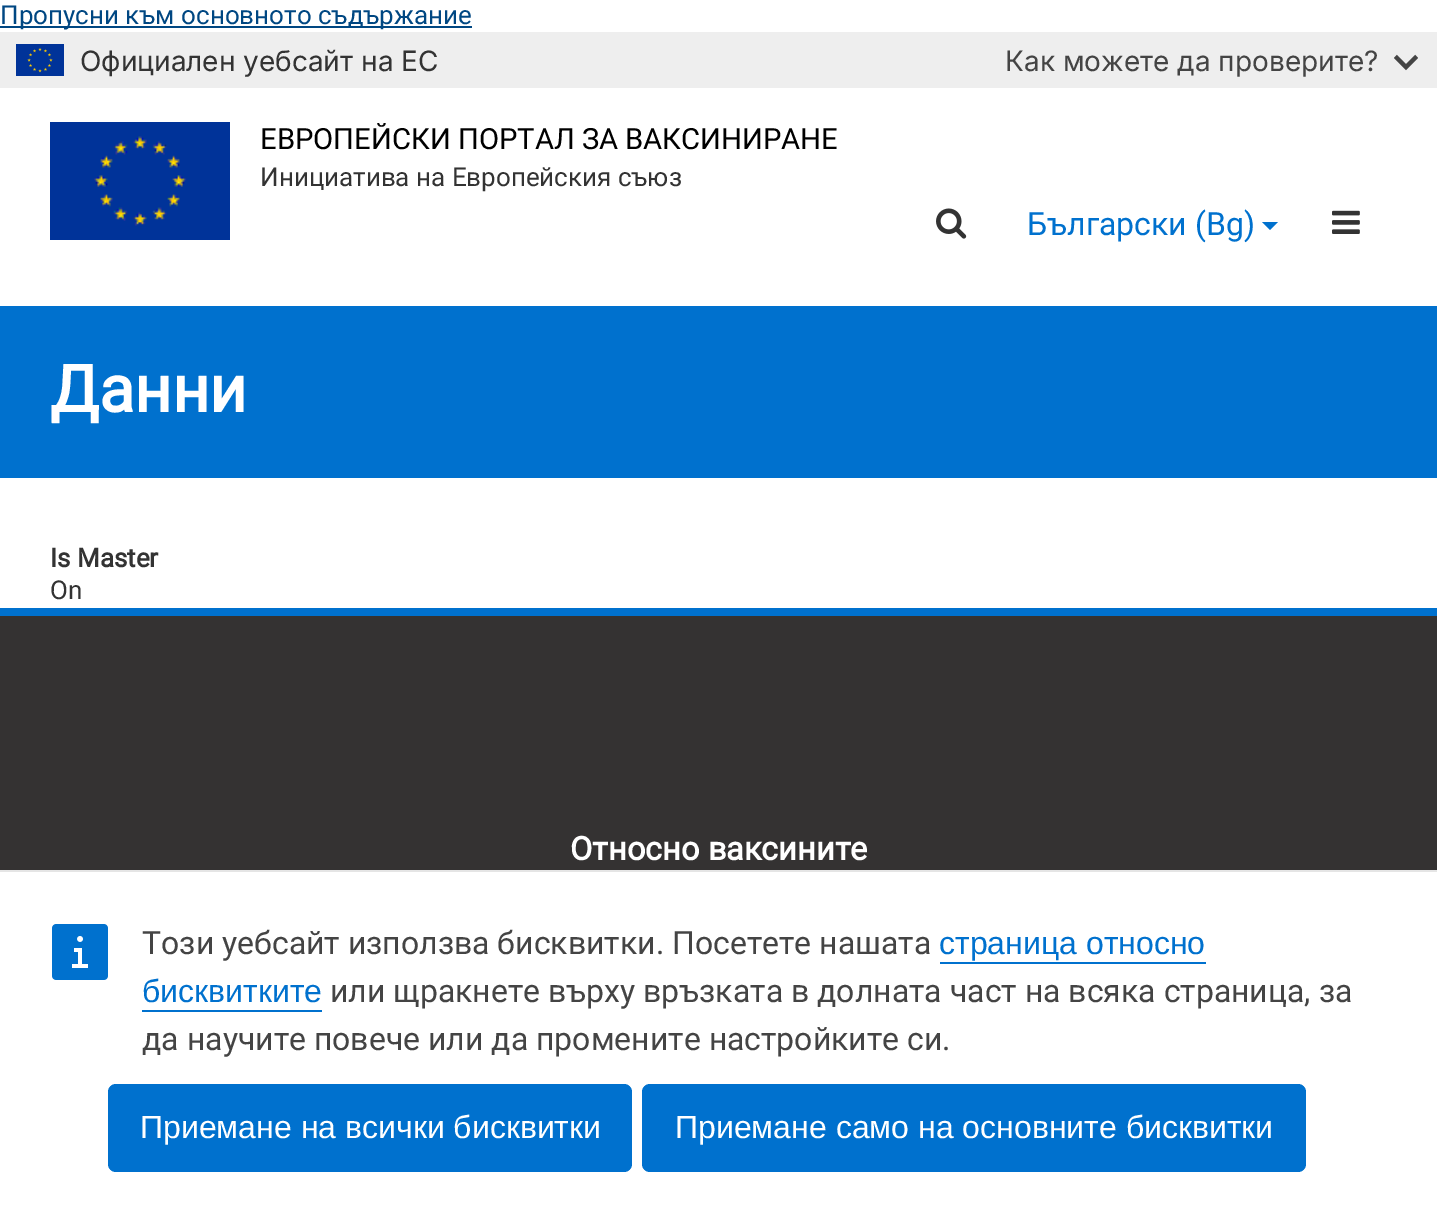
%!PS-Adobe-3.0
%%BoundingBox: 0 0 1437 1220
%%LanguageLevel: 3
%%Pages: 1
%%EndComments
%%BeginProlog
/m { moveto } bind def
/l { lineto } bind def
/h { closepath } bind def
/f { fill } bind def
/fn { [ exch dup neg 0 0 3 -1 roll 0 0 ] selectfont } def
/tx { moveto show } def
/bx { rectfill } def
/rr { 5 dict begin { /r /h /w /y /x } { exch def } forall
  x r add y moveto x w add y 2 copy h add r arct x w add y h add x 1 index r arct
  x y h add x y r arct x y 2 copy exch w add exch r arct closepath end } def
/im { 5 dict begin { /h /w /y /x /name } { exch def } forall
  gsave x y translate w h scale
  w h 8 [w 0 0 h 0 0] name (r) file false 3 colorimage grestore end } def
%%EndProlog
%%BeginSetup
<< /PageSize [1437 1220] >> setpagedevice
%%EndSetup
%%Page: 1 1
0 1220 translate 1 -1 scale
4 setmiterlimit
1 setgray
0 0 1437 1220 bx
0 0.278 0.51 setrgbcolor
0 26 472 2 bx
/Roboto-Regular 26 fn
(Пропусни към основното съдържание) 0 24 tx
0.933 setgray
0 32 1437 56 bx
(image0.raw) 16 44 48 32 im
/Inter-Regular 28 fn
0.2 setgray
(Официален уебсайт на ЕС) 80 71 tx
0.267 setgray
(Как можете да проверите?) 1005 71 tx
(image1.raw) 1394 54 24 17 im
(image2.raw) 50 122 180 118 im
/Roboto-Regular 29.25 fn
0 setgray
(ЕВРОПЕЙСКИ ПОРТАЛ ЗА ВАКСИНИРАНЕ) 260 149 tx
/Roboto-Regular 26 fn
0.2 setgray
(Инициатива на Европейския съюз) 260 186 tx
(image3.raw) 936 208 31 31 im
/Roboto-Regular 32 fn
0 0.443 0.808 setrgbcolor
(Български \(Bg\)) 1027 235 tx
1262 222 m 1278 222 l 1270 230 l h f
(image4.raw) 1332 210 28 24 im
0 608 1437 8 bx
0 306 1437 172 bx
/Roboto-Bold 65 fn
1 setgray
(Данни) 50 412 tx
/Roboto-Bold 26 fn
0.2 setgray
(Is Master) 50 567 tx
/Roboto-Regular 26 fn
(On) 50 599 tx
0.204 0.196 0.196 setrgbcolor
0 616 1437 254 bx
/Roboto-Bold 32.5 fn
1 setgray
(Относно ваксините) 570 860 tx
0.898 setgray
0 870 1437 2 bx
(image5.raw) 52 924 56 56 im
/Roboto-Regular 32 fn
0.267 setgray
(Този уебсайт използва бисквитки. Посетете нашата) 142 954 tx
/LiberationSans-Regular 32 fn
0 0.443 0.808 setrgbcolor
(страница относно) 939 954 tx
940 962 266 2 bx
(бисквитките) 142 1002 tx
142 1010 180 2 bx
/Roboto-Regular 32 fn
0.267 setgray
(или щракнете върху връзката в долната част на всяка страница, за) 330 1002 tx
(да научите повече или да промените настройките си.) 142 1050 tx
0 0.443 0.808 setrgbcolor
108 1084 524 88 8 rr f
/LiberationSans-Regular 32 fn
1 setgray
(Приемане на всички бисквитки) 140 1138 tx
0 0.443 0.808 setrgbcolor
642 1084 664 88 8 rr f
1 setgray
(Приемане само на основните бисквитки) 675 1138 tx
showpage
%%EOF
